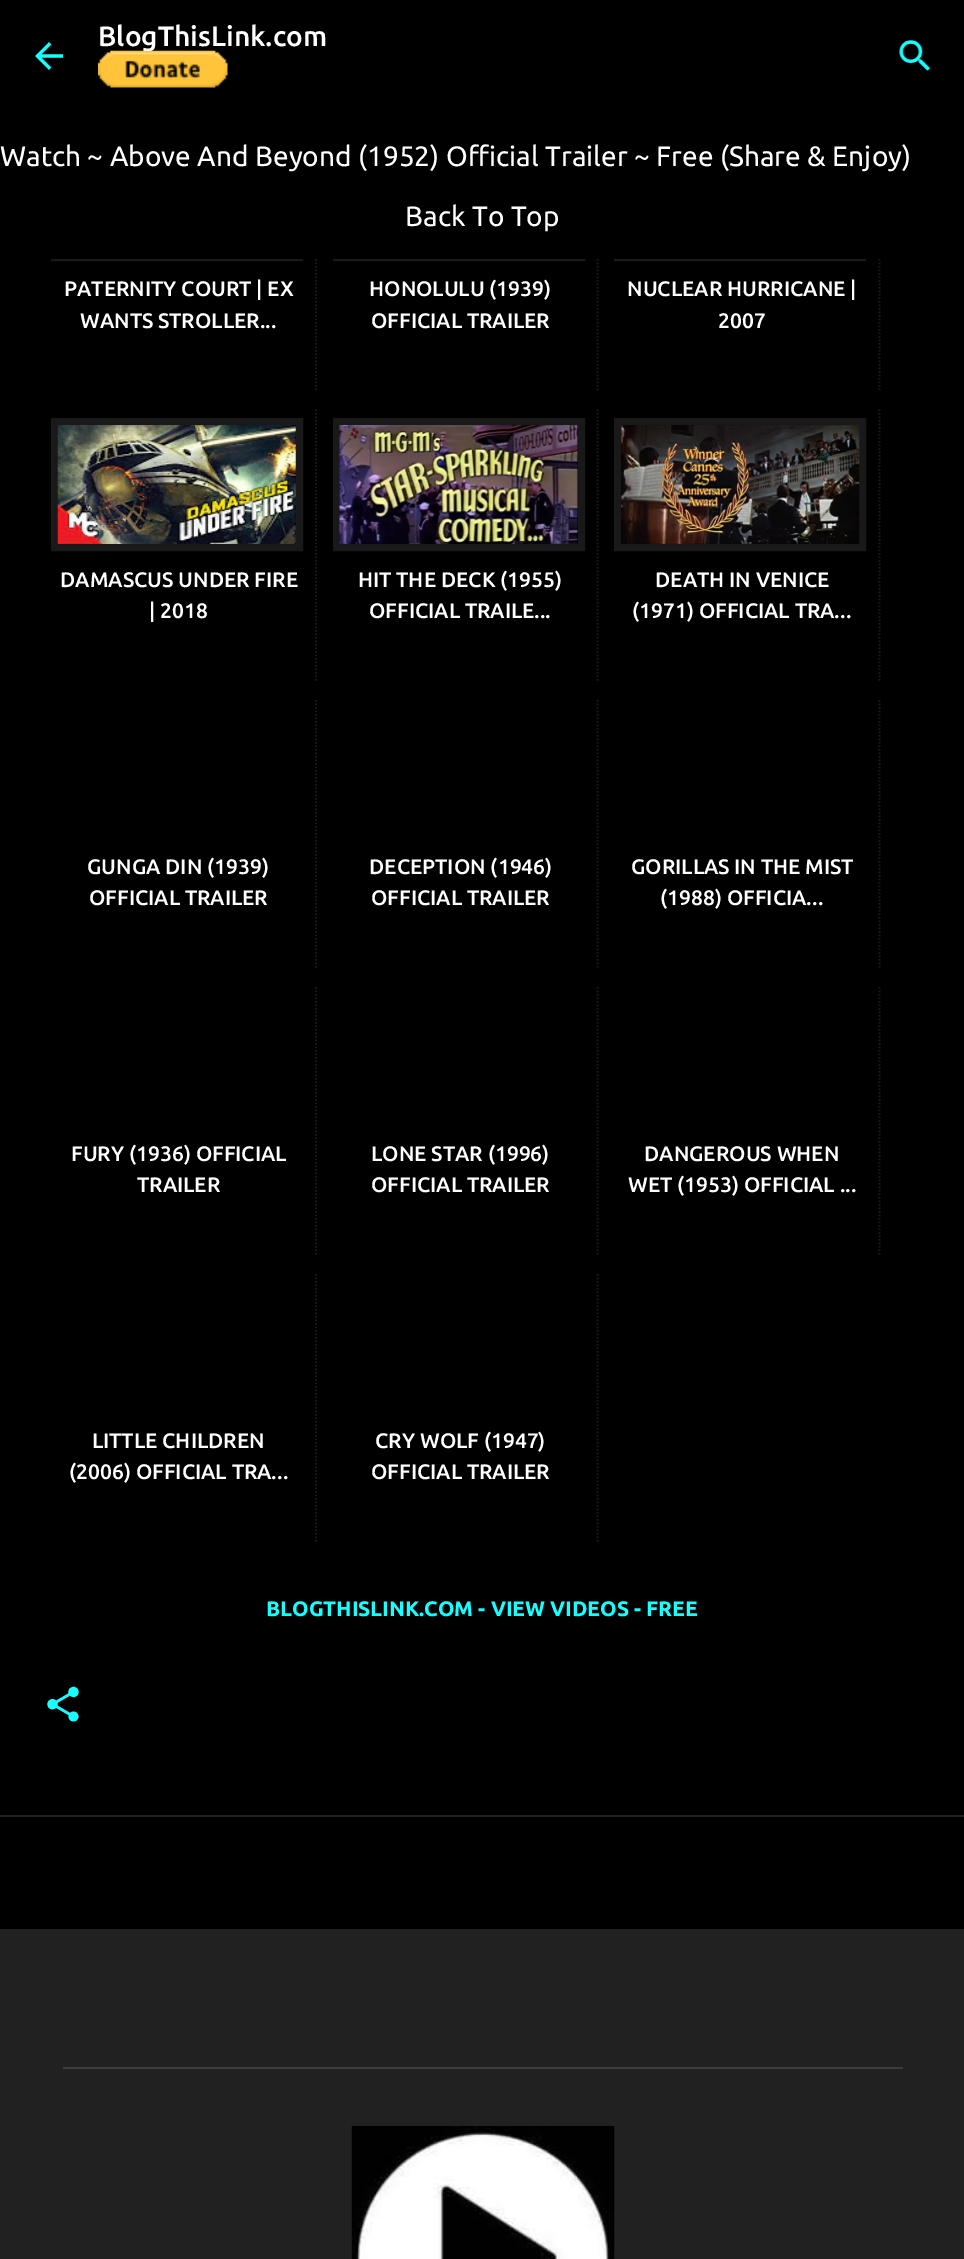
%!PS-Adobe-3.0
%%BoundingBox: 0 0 964 2259
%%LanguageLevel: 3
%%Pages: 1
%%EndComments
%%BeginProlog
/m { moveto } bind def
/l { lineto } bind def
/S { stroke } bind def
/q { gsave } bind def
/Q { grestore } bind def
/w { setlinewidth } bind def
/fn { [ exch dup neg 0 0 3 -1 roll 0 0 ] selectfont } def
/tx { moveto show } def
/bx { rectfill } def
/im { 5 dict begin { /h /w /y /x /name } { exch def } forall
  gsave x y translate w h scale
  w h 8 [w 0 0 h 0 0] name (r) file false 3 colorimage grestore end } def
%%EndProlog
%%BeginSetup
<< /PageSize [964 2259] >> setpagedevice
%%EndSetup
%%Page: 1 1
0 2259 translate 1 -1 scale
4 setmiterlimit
0.129 setgray
0 0 964 2259 bx
0 setgray
0 259 964 1556 bx
0.098 setgray
1.8 w
[1.75 1.75] 0 setdash
316 119 m 316 392 l S
7 w
[] 0 setdash
54.5 131.5 245 126 rectstroke
1.8 w
[1.75 1.75] 0 setdash
597.5 119 m 597.5 392 l S
7 w
[] 0 setdash
336.5 131.5 245 126 rectstroke
1.8 w
[1.75 1.75] 0 setdash
879.5 119 m 879.5 392 l S
7 w
[] 0 setdash
617.5 131.5 245 126 rectstroke
0 setgray
0 0 964 259 bx
(image0.raw) 35 42 28 28 im
(image1.raw) 98 50 130 38 im
q
98 19 768 32 rectclip
/Ubuntu-Medium 28 fn
1 setgray
(BlogThisLink.com) 98 46 tx
Q
(image2.raw) 899 40 32 31 im
/Ubuntu-Regular 28 fn
1 setgray
(Watch ~ Above And Beyond \(1952\) Official Trailer ~ Free \(Share & Enjoy\)) 0 166 tx
(Back To Top) 405 226 tx
/Ubuntu-Medium 21 fn
(PATERNITY COURT | EX) 64 296 tx
(WANTS STROLLER...) 80 328 tx
(HONOLULU \(1939\)) 369 296 tx
(OFFICIAL TRAILER) 371 328 tx
(NUCLEAR HURRICANE |) 627 296 tx
(2007) 718 328 tx
0.098 setgray
1.8 w
[1.75 1.75] 0 setdash
316 409.5 m 316 682.5 l S
7 w
[] 0 setdash
54.5 421.5 245 126 rectstroke
(image3.raw) 57 425 239 119 im
1 setgray
(DAMASCUS UNDER FIRE) 60 587 tx
(| 2018) 149 618 tx
0.098 setgray
1.8 w
[1.75 1.75] 0 setdash
597.5 409.5 m 597.5 682.5 l S
7 w
[] 0 setdash
336.5 421.5 245 126 rectstroke
(image4.raw) 339 425 239 119 im
1 setgray
(HIT THE DECK \(1955\)) 358 587 tx
(OFFICIAL TRAILE...) 369 618 tx
0.098 setgray
1.8 w
[1.75 1.75] 0 setdash
879.5 409.5 m 879.5 682.5 l S
7 w
[] 0 setdash
617.5 421.5 245 126 rectstroke
(image5.raw) 621 425 239 119 im
1 setgray
(DEATH IN VENICE) 655 587 tx
(\(1971\) OFFICIAL TRA...) 632 618 tx
0.098 setgray
1.8 w
[1.75 1.75] 0 setdash
316 700 m 316 969.5 l S
1 setgray
(GUNGA DIN \(1939\)) 87 874 tx
(OFFICIAL TRAILER) 89 905 tx
0.098 setgray
597.5 700 m 597.5 969.5 l S
1 setgray
(DECEPTION \(1946\)) 369 874 tx
(OFFICIAL TRAILER) 371 905 tx
0.098 setgray
879.5 700 m 879.5 969.5 l S
1 setgray
(GORILLAS IN THE MIST) 631 874 tx
(\(1988\) OFFICIA...) 660 905 tx
0.098 setgray
316 987 m 316 1256.5 l S
1 setgray
(FURY \(1936\) OFFICIAL) 71 1161 tx
(TRAILER) 137 1192 tx
0.098 setgray
597.5 987 m 597.5 1256.5 l S
1 setgray
(LONE STAR \(1996\)) 371 1161 tx
(OFFICIAL TRAILER) 371 1192 tx
0.098 setgray
879.5 987 m 879.5 1256.5 l S
1 setgray
(DANGEROUS WHEN) 644 1161 tx
(WET \(1953\) OFFICIAL ...) 628 1192 tx
0.098 setgray
316 1274 m 316 1543.5 l S
1 setgray
(LITTLE CHILDREN) 92 1448 tx
(\(2006\) OFFICIAL TRA...) 69 1479 tx
0.098 setgray
597.5 1274 m 597.5 1543.5 l S
1 setgray
(CRY WOLF \(1947\)) 375 1448 tx
(OFFICIAL TRAILER) 371 1479 tx
/Ubuntu-Bold 21 fn
0.094 1 1 setrgbcolor
(BLOGTHISLINK.COM - VIEW VIDEOS - FREE) 266 1616 tx
(image6.raw) 47 1686 32 36 im
0 setgray
0 1817 964 112 bx
0.235 setgray
63 2067 840 2 bx
(image7.raw) 351 2126 264 133 im
showpage
%%EOF
